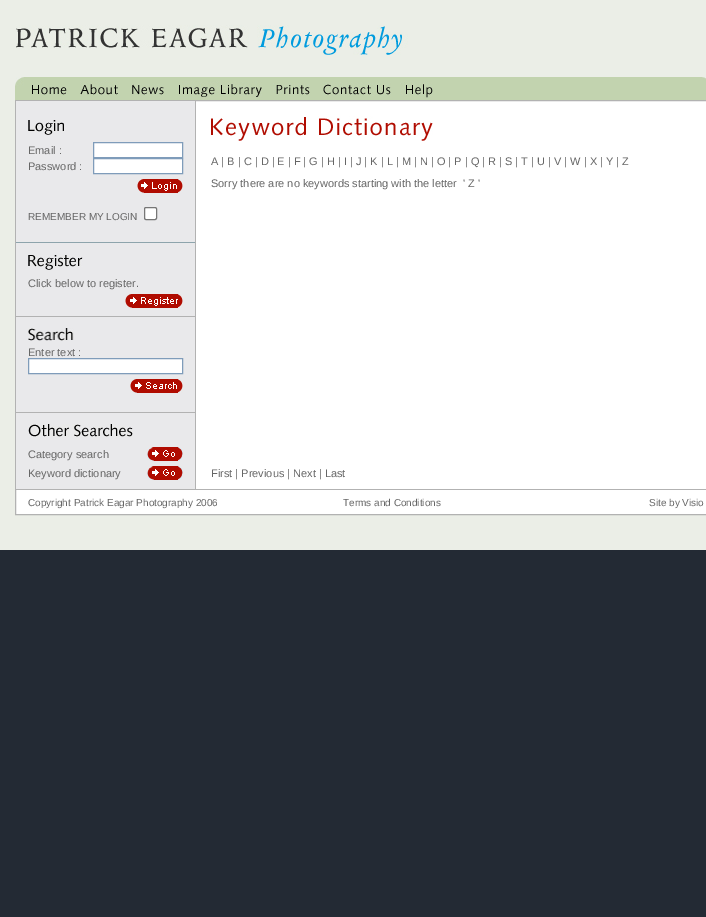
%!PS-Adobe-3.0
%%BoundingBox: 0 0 706 917
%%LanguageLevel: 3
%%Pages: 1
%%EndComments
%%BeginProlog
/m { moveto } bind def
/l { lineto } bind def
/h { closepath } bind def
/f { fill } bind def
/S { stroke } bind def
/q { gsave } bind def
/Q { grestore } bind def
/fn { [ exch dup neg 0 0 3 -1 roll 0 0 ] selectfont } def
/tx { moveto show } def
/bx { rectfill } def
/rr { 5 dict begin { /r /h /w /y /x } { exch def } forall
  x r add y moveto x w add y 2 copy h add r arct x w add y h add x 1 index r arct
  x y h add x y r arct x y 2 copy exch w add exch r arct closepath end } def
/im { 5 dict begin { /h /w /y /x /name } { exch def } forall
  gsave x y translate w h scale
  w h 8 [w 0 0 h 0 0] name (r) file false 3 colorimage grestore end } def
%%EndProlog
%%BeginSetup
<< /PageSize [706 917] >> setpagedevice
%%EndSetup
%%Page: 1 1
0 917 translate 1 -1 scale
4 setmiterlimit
0.137 0.165 0.204 setrgbcolor
0 0 706 917 bx
0.922 0.933 0.906 setrgbcolor
0 0 706 550 bx
(image0.raw) 16 25 392 30 im
0.761 0.827 0.686 setrgbcolor
15 77 691 23 bx
(image1.raw) 15 77 9 9 im
(image2.raw) 702 77 4 2 im
(image3.raw) 32 85 35 10 im
(image4.raw) 80 80 38 15 im
(image5.raw) 132 84 32 12 im
(image6.raw) 179 81 83 17 im
(image7.raw) 273 83 37 12 im
(image8.raw) 323 82 68 14 im
(image9.raw) 400 81 33 17 im
1 setgray
15.5 100.5 m 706.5 100.5 l 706.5 514.5 l 15.5 514.5 l h q f Q
0.698 setgray
S
0.914 0.914 0.922 setrgbcolor
16 101 179 388 bx
(image10.raw) 28 120 36 15 im
/LiberationSans-Regular 11 fn
0.4 setgray
(Email :) 28 154 tx
1 setgray
93.5 142.5 m 182.5 142.5 l 182.5 157.5 l 93.5 157.5 l h q f Q
0.498 0.612 0.729 setrgbcolor
S
0.4 setgray
(Password :) 28 170 tx
1 setgray
93.5 158.5 m 182.5 158.5 l 182.5 173.5 l 93.5 173.5 l h q f Q
0.498 0.612 0.729 setrgbcolor
S
(image11.raw) 137 179 46 14 im
/LiberationSans-Regular 10 fn
0.4 setgray
(REMEMBER MY LOGIN) 28 220 tx
1 setgray
144.5 207.5 12 12 1.5 rr q f Q
0.463 setgray
S
0.553 0.643 0.675 setrgbcolor
16 242 179 1 bx
(image12.raw) 28 255 55 15 im
/LiberationSans-Regular 11 fn
0.4 setgray
(Click below to register.) 28 287 tx
(image13.raw) 125 294 58 14 im
0.698 setgray
16 316 179 1 bx
(image14.raw) 28 328 46 13 im
0.4 setgray
(Enter text :) 28 356 tx
1 setgray
28.5 358.5 m 182.5 358.5 l 182.5 373.5 l 28.5 373.5 l h q f Q
0.498 0.612 0.729 setrgbcolor
S
(image15.raw) 130 379 53 14 im
0.698 setgray
16 412 179 1 bx
(image16.raw) 28 424 105 13 im
0.4 setgray
(Category search) 28 458 tx
(image17.raw) 146 447 37 14 im
(Keyword dictionary) 28 477 tx
(image17.raw) 146 466 37 14 im
0.698 setgray
195 101 1 388 bx
(image18.raw) 211 116 222 25 im
0.4 setgray
(A | B | C | D | E | F | G | H | I | J | K | L | M | N | O | P | Q | R | S | T | U | V | W | X | Y | Z) 211 165 tx
(Sorry there are no keywords starting with the letter  ' Z ') 211 187 tx
(First | Previous | Next | Last) 211 477 tx
0.698 setgray
16 489 690 1 bx
/LiberationSans-Regular 10 fn
0.4 setgray
(Copyright Patrick Eagar Photography 2006) 28 506 tx
(Terms and Conditions) 343 506 tx
(Site by Visio) 649 506 tx
showpage
%%EOF
